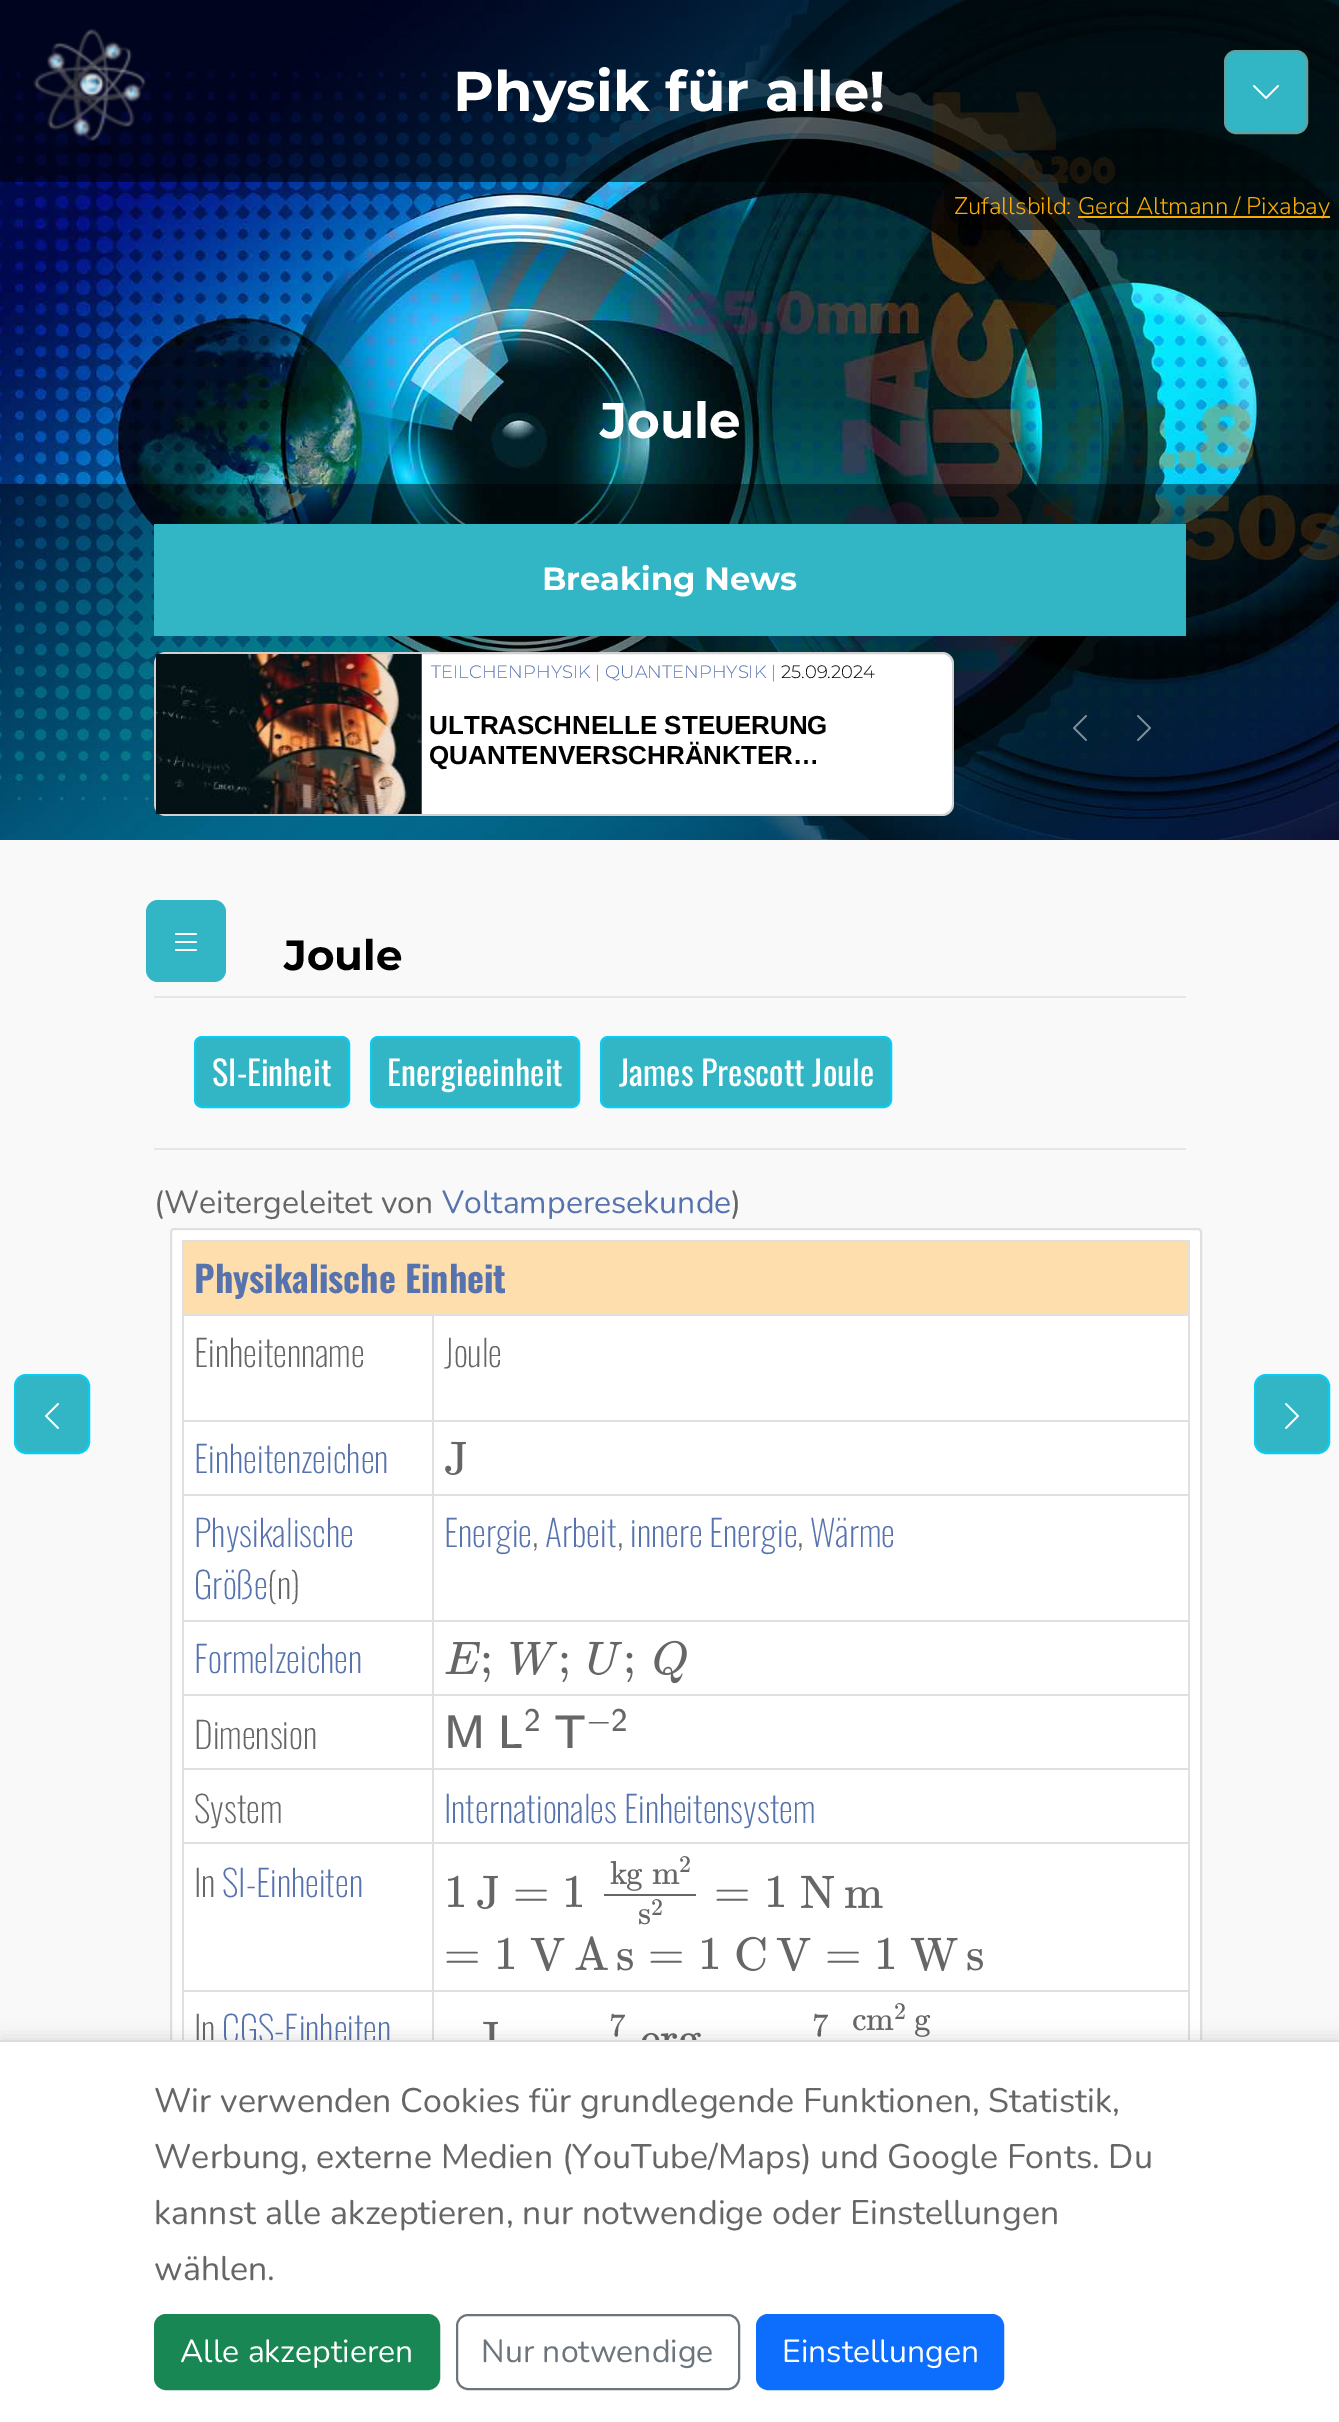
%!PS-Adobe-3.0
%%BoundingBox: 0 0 1339 2422
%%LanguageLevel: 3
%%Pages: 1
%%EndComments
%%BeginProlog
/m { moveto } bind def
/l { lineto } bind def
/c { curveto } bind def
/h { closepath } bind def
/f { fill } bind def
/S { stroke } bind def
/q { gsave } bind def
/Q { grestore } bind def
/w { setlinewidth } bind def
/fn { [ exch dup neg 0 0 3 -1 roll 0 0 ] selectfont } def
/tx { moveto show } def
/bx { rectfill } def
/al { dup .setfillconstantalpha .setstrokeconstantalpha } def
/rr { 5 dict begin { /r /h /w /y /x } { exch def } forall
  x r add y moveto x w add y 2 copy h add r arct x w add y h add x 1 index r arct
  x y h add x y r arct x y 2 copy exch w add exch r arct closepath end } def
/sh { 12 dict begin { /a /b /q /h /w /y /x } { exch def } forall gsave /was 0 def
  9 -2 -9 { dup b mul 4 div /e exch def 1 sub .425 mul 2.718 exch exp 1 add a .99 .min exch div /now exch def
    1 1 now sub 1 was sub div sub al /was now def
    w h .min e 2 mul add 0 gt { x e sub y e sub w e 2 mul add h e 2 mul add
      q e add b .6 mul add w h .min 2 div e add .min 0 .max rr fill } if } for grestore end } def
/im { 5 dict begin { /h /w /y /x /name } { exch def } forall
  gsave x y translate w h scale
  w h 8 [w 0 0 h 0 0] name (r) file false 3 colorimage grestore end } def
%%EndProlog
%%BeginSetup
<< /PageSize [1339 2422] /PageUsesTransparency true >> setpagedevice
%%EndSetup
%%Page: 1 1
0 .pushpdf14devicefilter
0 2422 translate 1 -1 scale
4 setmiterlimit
0.976 setgray
0 0 1339 2422 bx
(image2.raw) 0 0 1339 840 im
0.6 al
0 setgray
0 0 1339 182 bx
1 al
(image0.raw) 33 29 113 125 im
/Montserrat-Bold 56 fn
1 setgray
(Physik für alle!) 453 111 tx
0.196 0.71 0.769 setrgbcolor
1225 51 82 82 11 rr q f Q
0.392 0.631 0.616 setrgbcolor
2 w
S
(image1.raw) 1253 85 26 14 im
0.5 al
0 setgray
944 182 m 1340 182 l 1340 230 l 974 230 l 957.5 230 944 216.5 944 200 c h f
/Nunito-Light 24 fn
1 al
0.98 0.671 0.004 setrgbcolor
(Zufallsbild:) 954 214 tx
1078 216 252 2 bx
(Gerd Altmann / Pixabay) 1078 214 tx
/Montserrat-Bold 50 fn
1 setgray
(Joule) 600 438 tx
0.45 al
0 setgray
0 484 1339 356 bx
1 al
0.196 0.71 0.769 setrgbcolor
154 524 1032 112 bx
/Montserrat-Bold 32 fn
1 setgray
(Breaking News) 542 590 tx
154 652 800 164 12 rr f
0.18 al
0 setgray
155 653 798 162 11 rr S
1 al
(image3.raw) 156 654 266 160 im
/Montserrat-Light 18 fn
0.341 0.451 0.682 setrgbcolor
(TEILCHENPHYSIK | QUANTENPHYSIK |) 431 678 tx
0 setgray
(25.09.2024) 781 678 tx
/LiberationSans-Bold 26 fn
(ULTRASCHNELLE STEUERUNG) 429 734 tx
(QUANTENVERSCHRÄNKTER…) 429 764 tx
(image4.raw) 1073 715 14 26 im
(image5.raw) 1137 715 14 26 im
0.196 0.71 0.769 setrgbcolor
146 900 80 82 12 rr f
(image6.raw) 175 933 22 18 im
/Montserrat-Bold 42 fn
0 setgray
(Joule) 284 970 tx
0.906 setgray
154 996 1032 2 bx
154 1148 1032 2 bx
0.196 0.71 0.769 setrgbcolor
195 1037 154 70 7 rr q f Q
0.051 0.792 0.941 setrgbcolor
S
/Oswald-Regular 34 fn
1 setgray
(SI-Einheit) 212 1086 tx
0.196 0.71 0.769 setrgbcolor
371 1037 208 70 7 rr q f Q
0.051 0.792 0.941 setrgbcolor
S
1 setgray
(Energieeinheit) 387 1086 tx
0.196 0.71 0.769 setrgbcolor
601 1037 290 70 7 rr q f Q
0.051 0.792 0.941 setrgbcolor
S
1 setgray
(James Prescott Joule) 619 1086 tx
/Nunito-Regular 32 fn
0.4 setgray
(\(Weitergeleitet von) 154 1213 tx
0.341 0.451 0.682 setrgbcolor
(Voltamperesekunde) 442 1213 tx
0.4 setgray
(\)) 731 1213 tx
1 setgray
171 1229 1030 972 3 rr q f Q
0.878 setgray
S
182 1240 1008 2 bx
1188 1240 2 800 bx
182 1240 2 800 bx
1 0.871 0.678 setrgbcolor
184 1242 1004 72 bx
/Oswald-Bold 36 fn
0.341 0.451 0.682 setrgbcolor
(Physikalische Einheit) 194 1293 tx
0.878 setgray
432 1314 758 2 bx
432 1420 758 2 bx
432 1494 758 2 bx
432 1620 758 2 bx
432 1694 758 2 bx
432 1768 758 2 bx
432 1842 758 2 bx
432 1990 758 2 bx
432 1990 2 50 bx
182 1990 252 2 bx
432 1842 2 150 bx
182 1842 252 2 bx
432 1768 2 76 bx
182 1768 252 2 bx
432 1694 2 76 bx
182 1694 252 2 bx
432 1620 2 76 bx
182 1620 252 2 bx
432 1494 2 128 bx
182 1494 252 2 bx
432 1420 2 76 bx
182 1420 252 2 bx
432 1314 2 108 bx
182 1314 252 2 bx
/Oswald-ExtraLight 36 fn
0.4 setgray
(Einheitenname) 194 1367 tx
(Joule) 444 1367 tx
0.341 0.451 0.682 setrgbcolor
(Einheitenzeichen) 194 1473 tx
(image7.raw) 445 1441 21 34 im
(Physikalische) 194 1547 tx
(Größe) 194 1599 tx
0.4 setgray
(\(n\)) 267 1599 tx
0.341 0.451 0.682 setrgbcolor
(Energie) 444 1547 tx
0.4 setgray
(,) 532 1547 tx
0.341 0.451 0.682 setrgbcolor
(Arbeit) 545 1547 tx
0.4 setgray
(,) 617 1547 tx
0.341 0.451 0.682 setrgbcolor
(innere Energie) 630 1547 tx
0.4 setgray
(,) 797 1547 tx
0.341 0.451 0.682 setrgbcolor
(Wärme) 810 1547 tx
(Formelzeichen) 194 1673 tx
(image8.raw) 445 1642 35 32 im
/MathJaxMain-Regular 47 fn
0.4 setgray
(;) 480 1673 tx
(image9.raw) 510 1641 48 34 im
(;) 558 1673 tx
(image10.raw) 588 1641 34 34 im
(;) 623 1673 tx
(image11.raw) 654 1640 33 44 im
/Oswald-ExtraLight 36 fn
(Dimension) 194 1749 tx
(image12.raw) 448 1715 33 33 im
502 1748 m 521.5 1748 l 521.5 1744 l 507 1744.5 l 507 1715.5 l 502 1715.5 l h f
/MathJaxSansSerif-Regular 33 fn
(2) 524 1731 tx
555.5 1719.5 m 567.5 1719.5 l 567.5 1748 l 572.5 1748 l 572.5 1719.5 l 584.5 1719.5 l 584.5 1715.5 l 555.5 1715.5 l h f
/MathJaxMain-Regular 33 fn
(−) 586 1731 tx
/MathJaxSansSerif-Regular 33 fn
(2) 611 1731 tx
/Oswald-ExtraLight 36 fn
(System) 194 1823 tx
0.341 0.451 0.682 setrgbcolor
(Internationales Einheitensystem) 444 1823 tx
0.4 setgray
(In) 194 1897 tx
0.341 0.451 0.682 setrgbcolor
(SI-Einheiten) 222 1897 tx
/MathJaxMain-Regular 47 fn
0.4 setgray
(1) 444 1907 tx
(image7.raw) 477 1875 21 34 im
(=) 513 1907 tx
(1) 562 1907 tx
(image13.raw) 610 1860 17 24 im
(image14.raw) 627 1868 16 23 im
/MathJaxMain-Regular 24 fn
(2) 679 1872 tx
(image15.raw) 652 1869 28 15 im
604 1894 92 2 bx
(2) 651 1915 tx
(image16.raw) 639 1909 11 16 im
/MathJaxMain-Regular 47 fn
(=) 714 1907 tx
(1) 764 1907 tx
(image17.raw) 801 1875 34 33 im
(image18.raw) 845 1887 38 21 im
(=) 444 1969 tx
(1) 494 1969 tx
(image19.raw) 530 1937 35 35 im
(image20.raw) 575 1936 33 34 im
(image21.raw) 617 1948 16 23 im
(=) 648 1969 tx
(1) 698 1969 tx
(image22.raw) 736 1936 30 35 im
(image19.raw) 776 1937 35 35 im
(=) 825 1969 tx
(1) 874 1969 tx
(image23.raw) 910 1937 48 34 im
(image21.raw) 967 1948 16 23 im
/Oswald-ExtraLight 36 fn
(In) 194 2043 tx
0.341 0.451 0.682 setrgbcolor
(CGS-Einheiten) 222 2043 tx
/MathJaxMain-Regular 24 fn
0.4 setgray
(2) 894 2019 tx
(image24.raw) 853 2015 13 16 im
(image15.raw) 866 2015 28 15 im
(image14.raw) 915 2014 16 23 im
(image25.raw) 483 2021 15 19 im
/MathJaxMain-Regular 33 fn
(7) 609 2036 tx
(image26.raw) 642 2032 18 8 im
(image27.raw) 660 2033 18 7 im
(image28.raw) 680 2032 21 8 im
(7) 812 2036 tx
0.196 0.71 0.769 setrgbcolor
15 1375 74 78 11 rr q f Q
0.051 0.792 0.941 setrgbcolor
S
(image29.raw) 45 1403 14 26 im
0.196 0.71 0.769 setrgbcolor
1255 1375 74 78 11 rr q f Q
0.051 0.792 0.941 setrgbcolor
S
(image30.raw) 1285 1403 14 26 im
0 setgray
0 2036 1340 382 0 8 0.1 sh
1 setgray
0 2042 1339 380 bx
0.867 setgray
0 2040 1339 2 bx
/Nunito-Regular 34 fn
0.4 setgray
(Wir verwenden Cookies für grundlegende Funktionen, Statistik,) 154 2112 tx
(Werbung, externe Medien \(YouTube/Maps\) und Google Fonts. Du) 154 2168 tx
(kannst alle akzeptieren, nur notwendige oder Einstellungen) 154 2224 tx
(wählen.) 154 2280 tx
0.098 0.529 0.329 setrgbcolor
155 2315 284 74 11 rr q f Q
S
/Nunito-Regular 32 fn
1 setgray
(Alle akzeptieren) 180 2362 tx
0.424 0.459 0.49 setrgbcolor
457 2315 282 74 11 rr S
(Nur notwendige) 481 2362 tx
0.051 0.431 0.992 setrgbcolor
757 2315 246 74 11 rr q f Q
S
1 setgray
(Einstellungen) 782 2362 tx
.poppdf14devicefilter showpage
%%EOF
